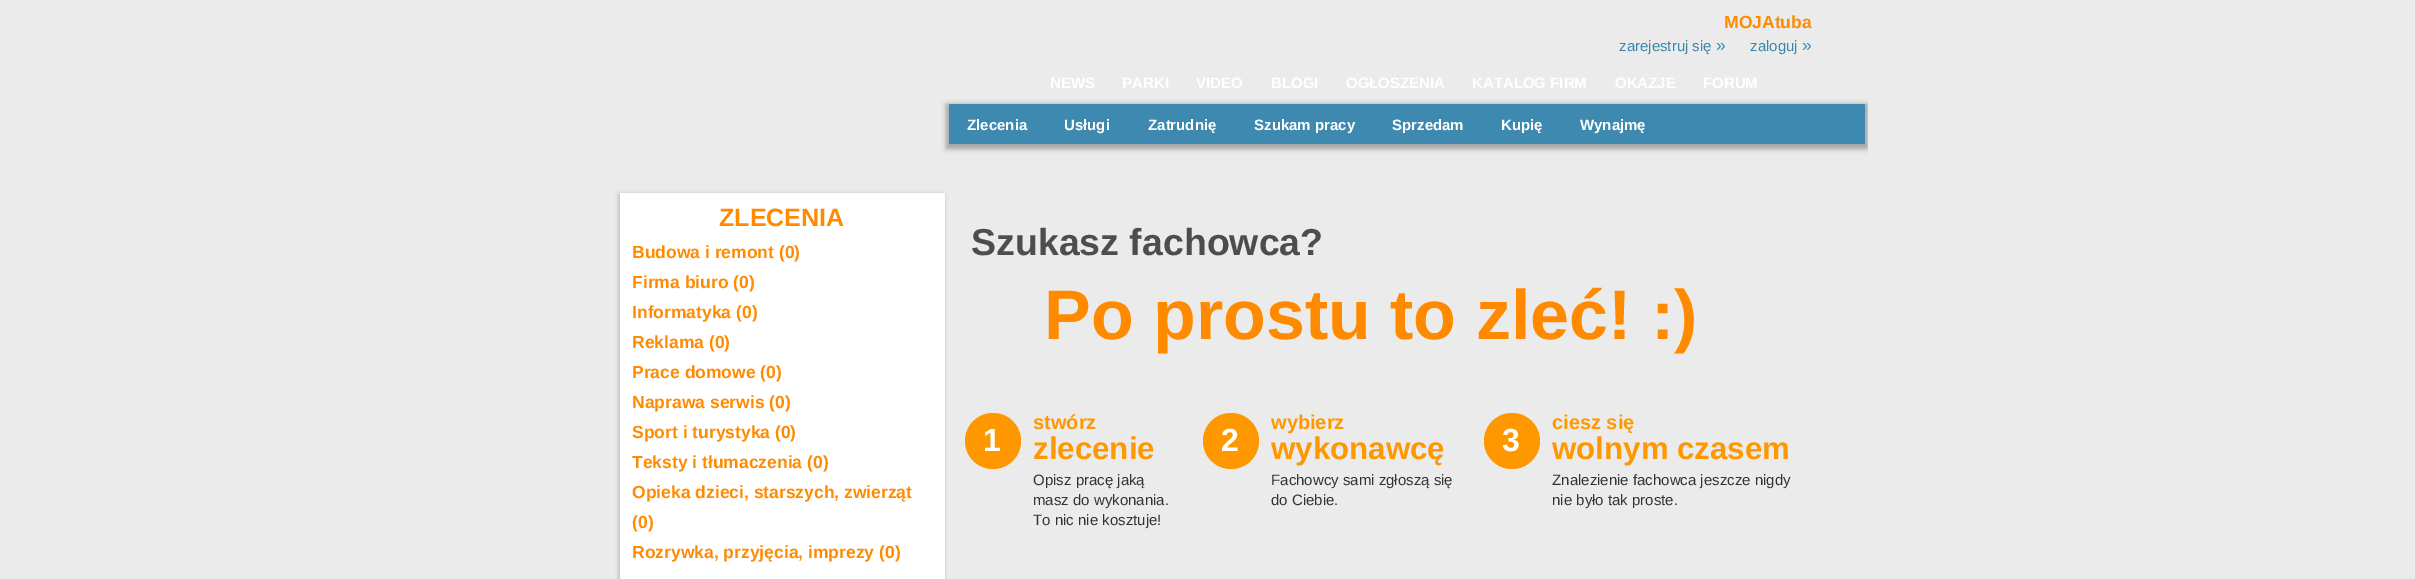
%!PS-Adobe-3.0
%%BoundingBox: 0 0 2415 579
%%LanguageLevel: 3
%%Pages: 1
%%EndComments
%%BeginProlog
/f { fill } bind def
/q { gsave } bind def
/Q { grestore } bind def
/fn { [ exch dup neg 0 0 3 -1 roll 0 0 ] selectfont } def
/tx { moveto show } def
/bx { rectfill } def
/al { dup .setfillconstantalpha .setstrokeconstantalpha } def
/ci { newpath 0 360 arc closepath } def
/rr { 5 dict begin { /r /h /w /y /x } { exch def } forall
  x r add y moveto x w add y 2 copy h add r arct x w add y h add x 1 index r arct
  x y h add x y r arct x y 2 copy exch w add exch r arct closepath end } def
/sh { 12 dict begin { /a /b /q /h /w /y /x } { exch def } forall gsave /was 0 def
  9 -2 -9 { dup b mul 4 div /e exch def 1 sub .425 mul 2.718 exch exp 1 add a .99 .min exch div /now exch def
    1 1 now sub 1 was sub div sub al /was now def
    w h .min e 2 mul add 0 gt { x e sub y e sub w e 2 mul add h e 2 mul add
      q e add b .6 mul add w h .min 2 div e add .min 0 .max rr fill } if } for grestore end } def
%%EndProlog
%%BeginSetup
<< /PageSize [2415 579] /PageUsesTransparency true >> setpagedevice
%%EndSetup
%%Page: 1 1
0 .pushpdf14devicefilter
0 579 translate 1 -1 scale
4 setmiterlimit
0.922 setgray
0 0 2415 579 bx
/LiberationSans-Bold 17.5 fn
1 0.541 0 setrgbcolor
(MOJAtuba) 1724 28 tx
/LiberationSans-Regular 15 fn
0.224 0.529 0.682 setrgbcolor
(zarejestruj się) 1619 51 tx
/LiberationSans-Regular 17.5 fn
(») 1716 51 tx
/LiberationSans-Regular 15 fn
(zaloguj) 1750 51 tx
/LiberationSans-Regular 17.5 fn
(») 1802 51 tx
/LiberationSans-Bold 15 fn
1 setgray
(NEWS) 1050 88 tx
(PARKI) 1122 88 tx
(VIDEO) 1196 88 tx
(BLOGI) 1271 88 tx
(OGŁOSZENIA) 1346 88 tx
(KATALOG FIRM) 1472 88 tx
(OKAZJE) 1615 88 tx
(FORUM) 1703 88 tx
q
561 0 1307 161 rectclip
0 setgray
946 104 922 45 0 2.5 0.3 sh
Q
0.243 0.537 0.69 setrgbcolor
949 104 916 40 bx
1 setgray
(Zlecenia) 967 130 tx
(Usługi) 1064 130 tx
(Zatrudnię) 1148 130 tx
(Szukam pracy) 1254 130 tx
(Sprzedam) 1392 130 tx
(Kupię) 1501 130 tx
(Wynajmę) 1580 130 tx
0.196 setgray
619 194 325 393 0 2.5 0.3 sh
1 setgray
620 193 325 386 bx
/LiberationSans-Bold 25 fn
1 0.541 0 setrgbcolor
(ZLECENIA) 719 226 tx
/LiberationSans-Bold 17.5 fn
(Budowa i remont \(0\)) 632 258 tx
(Firma biuro \(0\)) 632 288 tx
(Informatyka \(0\)) 632 318 tx
(Reklama \(0\)) 632 348 tx
(Prace domowe \(0\)) 632 378 tx
(Naprawa serwis \(0\)) 632 408 tx
(Sport i turystyka \(0\)) 632 438 tx
(Teksty i tłumaczenia \(0\)) 632 468 tx
(Opieka dzieci, starszych, zwierząt) 632 498 tx
(\(0\)) 632 528 tx
(Rozrywka, przyjęcia, imprezy \(0\)) 632 558 tx
/LiberationSans-Bold 37.5 fn
0.302 setgray
(Szukasz fachowca?) 971 255 tx
/LiberationSans-Bold 70 fn
1 0.541 0 setrgbcolor
(Po prostu to zleć! :\)) 1044 339 tx
1 0.596 0 setrgbcolor
993 441 28 ci f
/LiberationSans-Bold 32 fn
1 setgray
(1) 983 451 tx
/LiberationSans-Bold 20 fn
1 0.596 0 setrgbcolor
(stwórz) 1033 429 tx
/LiberationSans-Bold 31.25 fn
(zlecenie) 1033 459 tx
/LiberationSans-Regular 15 fn
0.2 setgray
(Opisz pracę jaką) 1033 485 tx
(masz do wykonania.) 1033 505 tx
(To nic nie kosztuje!) 1033 525 tx
1 0.596 0 setrgbcolor
1231 441 28 ci f
/LiberationSans-Bold 32 fn
1 setgray
(2) 1221 451 tx
/LiberationSans-Bold 20 fn
1 0.596 0 setrgbcolor
(wybierz) 1271 429 tx
/LiberationSans-Bold 31.25 fn
(wykonawcę) 1271 459 tx
/LiberationSans-Regular 15 fn
0.2 setgray
(Fachowcy sami zgłoszą się) 1271 485 tx
(do Ciebie.) 1271 505 tx
1 0.596 0 setrgbcolor
1512 441 28 ci f
/LiberationSans-Bold 32 fn
1 setgray
(3) 1502 451 tx
/LiberationSans-Bold 20 fn
1 0.596 0 setrgbcolor
(ciesz się) 1552 429 tx
/LiberationSans-Bold 31.25 fn
(wolnym czasem) 1552 459 tx
/LiberationSans-Regular 15 fn
0.2 setgray
(Znalezienie fachowca jeszcze nigdy) 1552 485 tx
(nie było tak proste.) 1552 505 tx
.poppdf14devicefilter showpage
%%EOF
